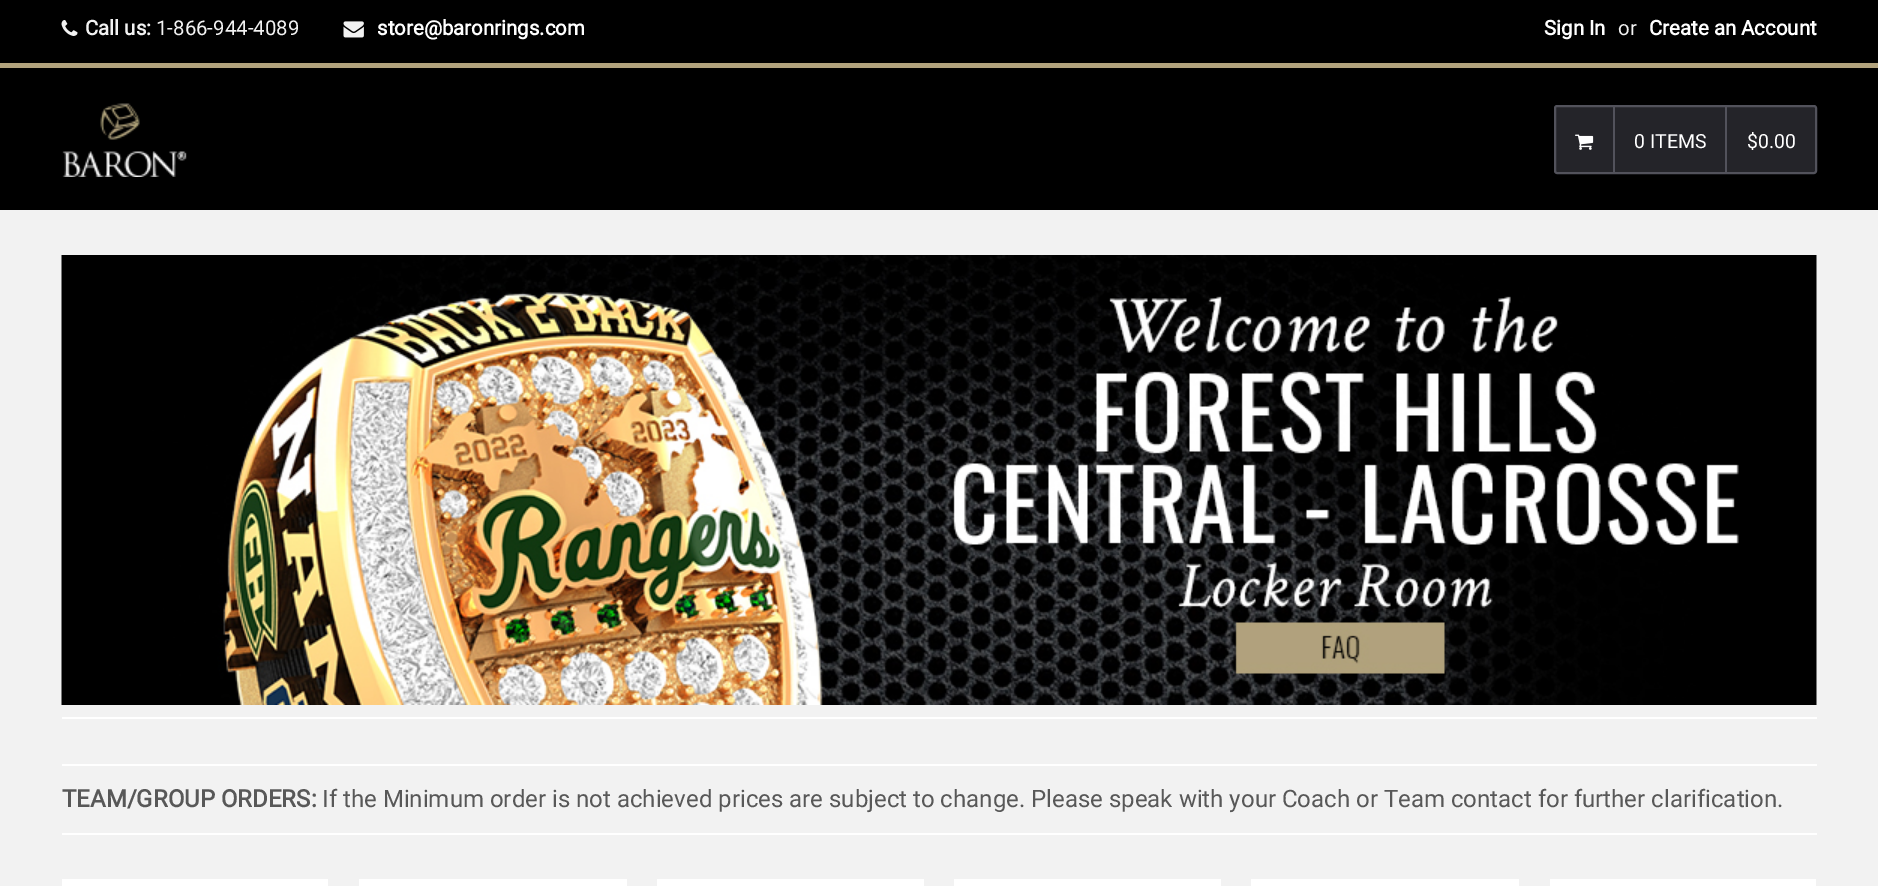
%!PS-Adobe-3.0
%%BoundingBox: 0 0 1878 886
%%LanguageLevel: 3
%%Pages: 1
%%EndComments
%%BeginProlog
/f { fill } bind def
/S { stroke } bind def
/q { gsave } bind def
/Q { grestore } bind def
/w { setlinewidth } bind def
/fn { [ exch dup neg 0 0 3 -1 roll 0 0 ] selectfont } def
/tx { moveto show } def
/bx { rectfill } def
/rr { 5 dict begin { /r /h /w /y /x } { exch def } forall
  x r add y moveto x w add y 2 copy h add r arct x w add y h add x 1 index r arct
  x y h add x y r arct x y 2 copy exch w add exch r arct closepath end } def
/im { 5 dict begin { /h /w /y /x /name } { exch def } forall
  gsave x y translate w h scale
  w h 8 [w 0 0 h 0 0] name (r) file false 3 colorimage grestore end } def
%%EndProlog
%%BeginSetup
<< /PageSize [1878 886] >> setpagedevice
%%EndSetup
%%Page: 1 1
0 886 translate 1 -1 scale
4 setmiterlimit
0.949 setgray
0 0 1878 886 bx
0 setgray
0 0 1878 63 bx
0.698 0.639 0.49 setrgbcolor
0 63 1878 5 bx
(image0.raw) 61 20 17 16 im
/Roboto-Bold 20.4 fn
0.949 setgray
(Call us:) 85 35 tx
/Roboto-Regular 20.4 fn
(1-866-944-4089) 156 35 tx
(image1.raw) 343 21 21 17 im
/Roboto-Bold 20.4 fn
1 setgray
(store@baronrings.com) 377 35 tx
(Sign In) 1544 35 tx
/Roboto-Regular 20.4 fn
0.949 setgray
(or) 1618 35 tx
/Roboto-Bold 20.4 fn
1 setgray
(Create an Account) 1649 35 tx
0 setgray
0 68 1878 142 bx
(image2.raw) 62 103 125 74 im
0.141 0.141 0.161 setrgbcolor
1555 106 261 67 2 rr q f Q
0.322 0.322 0.357 setrgbcolor
2 w
S
(image3.raw) 1575 134 19 16 im
1613 107 2 66 bx
/Roboto-Regular 19.5 fn
1 setgray
(0 ITEMS) 1634 148 tx
0.322 0.322 0.357 setrgbcolor
1725 107 2 66 bx
1 setgray
($0.00) 1747 148 tx
62 717 1755 2 bx
(image4.raw) 61 255 1756 450 im
62 764 1755 2 bx
62 833 1755 2 bx
/Roboto-Bold 24 fn
0.345 setgray
(TEAM/GROUP ORDERS:) 62 807 tx
/Roboto-Regular 24 fn
(If the Minimum order is not achieved prices are subject to change. Please speak with your Coach or Team contact for further clarification.) 322 807 tx
1 setgray
62 879 266 7 bx
359 879 268 7 bx
657 879 267 7 bx
954 879 267 7 bx
1251 879 268 7 bx
1550 879 266 7 bx
showpage
%%EOF
